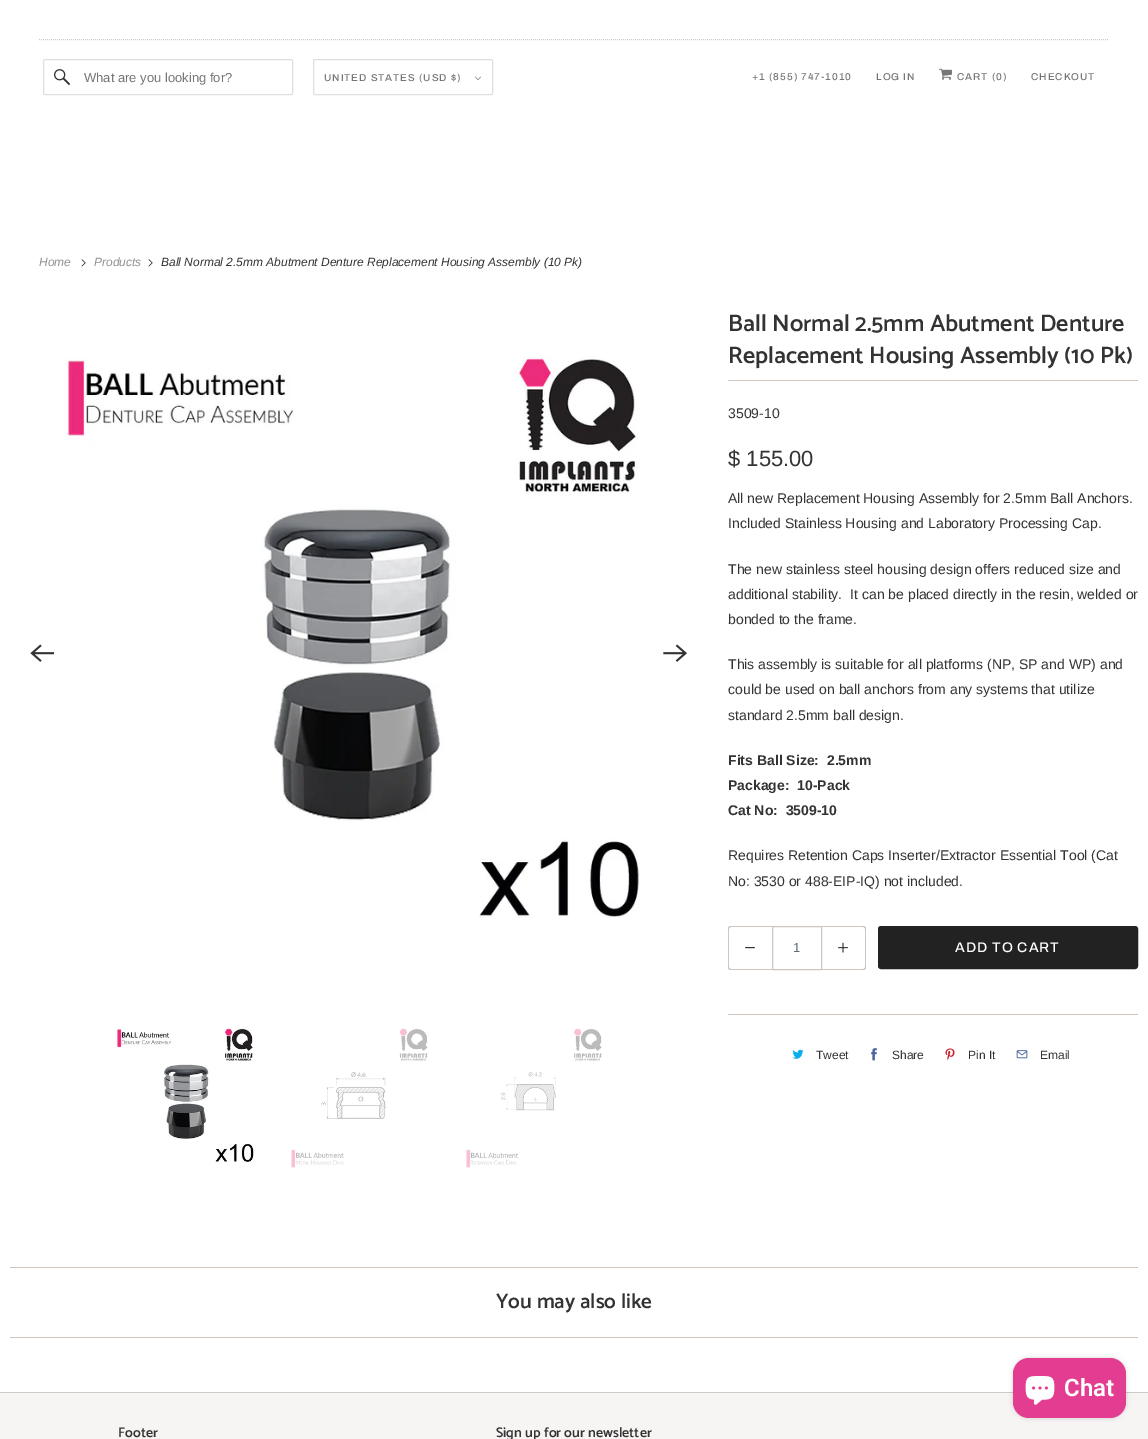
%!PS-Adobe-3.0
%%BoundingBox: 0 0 1148 1439
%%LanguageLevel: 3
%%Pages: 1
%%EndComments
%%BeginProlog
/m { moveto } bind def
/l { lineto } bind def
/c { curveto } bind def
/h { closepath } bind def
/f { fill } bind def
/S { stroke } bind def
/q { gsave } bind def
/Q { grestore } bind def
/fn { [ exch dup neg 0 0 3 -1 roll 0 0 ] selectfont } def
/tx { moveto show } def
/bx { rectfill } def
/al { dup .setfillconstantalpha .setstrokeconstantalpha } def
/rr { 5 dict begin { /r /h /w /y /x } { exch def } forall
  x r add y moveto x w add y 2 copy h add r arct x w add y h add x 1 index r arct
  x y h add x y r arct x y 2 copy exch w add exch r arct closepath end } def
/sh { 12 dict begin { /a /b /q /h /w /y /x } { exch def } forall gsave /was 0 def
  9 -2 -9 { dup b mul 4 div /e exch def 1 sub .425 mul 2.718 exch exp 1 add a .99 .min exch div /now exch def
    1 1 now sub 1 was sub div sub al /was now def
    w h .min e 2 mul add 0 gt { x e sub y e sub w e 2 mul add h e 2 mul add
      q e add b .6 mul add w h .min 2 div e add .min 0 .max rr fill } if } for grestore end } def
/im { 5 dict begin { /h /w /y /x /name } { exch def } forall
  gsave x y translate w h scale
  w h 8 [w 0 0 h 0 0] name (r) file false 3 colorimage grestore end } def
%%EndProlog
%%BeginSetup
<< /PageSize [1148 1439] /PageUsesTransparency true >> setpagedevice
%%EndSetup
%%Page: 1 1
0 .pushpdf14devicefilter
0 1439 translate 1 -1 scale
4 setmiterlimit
1 setgray
0 0 1148 1439 bx
0.808 0.776 0.749 setrgbcolor
[1 1] 0 setdash
39 39.5 m 1109 39.5 l S
0.875 setgray
[] 0 setdash
43.5 59.5 249 35 1.5 rr S
(image0.raw) 54 69 16 16 im
/Arimo-Regular 13 fn
0.459 setgray
(What are you looking for?) 84 82 tx
0.875 setgray
313.5 59.5 179 35 1.5 rr S
/Archivo-Medium 10 fn
0.459 setgray
324 81 m 1 0 (UNITED STATES \(USD $\)) ashow
(image1.raw) 475 76 6 4 im
752 80 m 1 0 (+1 \(855\) 747-1010) ashow
876 80 m 1 0 (LOG IN) ashow
(image2.raw) 939 68 13 12 im
957 80 m 1 0 (CART \(0\)) ashow
1031 80 m 1 0 (CHECKOUT) ashow
/Arimo-Italic 12 fn
0.569 setgray
(Home) 39 266 tx
(image3.raw) 81 259 5 8 im
(Products) 94 266 tx
(image3.raw) 148 259 5 8 im
0.2 setgray
(Ball Normal 2.5mm Abutment Denture Replacement Housing Assembly \(10 Pk\)) 161 266 tx
(image4.raw) 30 644 25 18 im
(image5.raw) 64 357 577 561 im
(image6.raw) 663 644 24 18 im
(image7.raw) 116 1026 138 137 im
(image8.raw) 291 1028 137 140 im
(image9.raw) 466 1028 136 140 im
0.808 0.776 0.749 setrgbcolor
728 380 410 1 bx
/Catamaran-SemiBold 24 fn
0.2 setgray
(Ball Normal 2.5mm Abutment Denture) 728 331 tx
(Replacement Housing Assembly \(10 Pk\)) 728 363 tx
/Arimo-Regular 14 fn
(3509-10) 728 418 tx
/Arimo-Regular 22 fn
($ 155.00) 728 466 tx
/Arimo-Regular 14 fn
(All new Replacement Housing Assembly for 2.5mm Ball Anchors.) 728 503 tx
(Included Stainless Housing and Laboratory Processing Cap.) 728 528 tx
(The new stainless steel housing design offers reduced size and) 728 574 tx
(additional stability.  It can be placed directly in the resin, welded or) 728 599 tx
(bonded to the frame.) 728 624 tx
(This assembly is suitable for all platforms \(NP, SP and WP\) and) 728 669 tx
(could be used on ball anchors from any systems that utilize) 728 694 tx
(standard 2.5mm ball design.) 728 720 tx
/Arimo-Bold 14 fn
(Fits Ball Size:  2.5mm) 728 765 tx
(Package:  10-Pack) 728 790 tx
(Cat No:  3509-10) 728 815 tx
/Arimo-Regular 14 fn
(Requires Retention Caps Inserter/Extractor Essential Tool \(Cat) 728 860 tx
(No: 3530 or 488-EIP-IQ\) not included.) 728 886 tx
0.808 0.776 0.749 setrgbcolor
731 926 m 772 926 l 772 970 l 731 970 l 729 970 728 969 728 967 c 728 929 l 728 927 729 926 731 926 c h 731 927 m 772 927 l 772 969 l 731 969 l 730 969 729 968 729 967 c 729 929 l 729 928 730 927 731 927 c h eofill
(image10.raw) 745 947 10 2 im
772.5 926.5 49 43 rectstroke
/LiberationSans-Regular 13 fn
0.373 0.416 0.49 setrgbcolor
(1) 793 952 tx
0.808 0.776 0.749 setrgbcolor
822 926 m 863 926 l 865 926 866 927 866 929 c 866 967 l 866 969 865 970 863 970 c 822 970 l h 822 927 m 863 927 l 864 927 865 928 865 929 c 865 967 l 865 968 864 969 863 969 c 822 969 l h eofill
(image11.raw) 838 942 10 11 im
0.133 setgray
878.5 926.5 259 42 2.5 rr q f Q
S
/Archivo-Medium 14 fn
1 setgray
955 952 m 1 0 (ADD TO CART) ashow
0.808 0.776 0.749 setrgbcolor
728 1014 410 1 bx
(image12.raw) 792 1049 12 10 im
/Arimo-Regular 12 fn
0.2 setgray
(Tweet) 816 1059 tx
(image13.raw) 871 1048 6 13 im
(Share) 892 1059 tx
(image14.raw) 945 1048 10 12 im
(Pin It) 968 1059 tx
(image15.raw) 1016 1050 12 9 im
(Email) 1040 1059 tx
0.808 0.776 0.749 setrgbcolor
10 1267 1128 1 bx
10 1337 1128 1 bx
/Catamaran-SemiBold 21 fn
0.2 setgray
(You may also like) 496 1308 tx
0.969 0.957 0.957 setrgbcolor
0 1393 1148 46 bx
0.8 setgray
0 1392 1148 1 bx
0 setgray
1013 1358 113 60 16 2.5 0.15 sh
0.886 0.239 0.569 setrgbcolor
1013 1358 113 60 16 rr f
(image16.raw) 1025 1376 30 29 im
/Roboto-SemiBold 24 fn
1 setgray
(Chat) 1064 1396 tx
/Catamaran-SemiBold 14 fn
0.2 setgray
(Footer) 118 1437 tx
(Sign up for our newsletter) 496 1437 tx
.poppdf14devicefilter showpage
%%EOF
